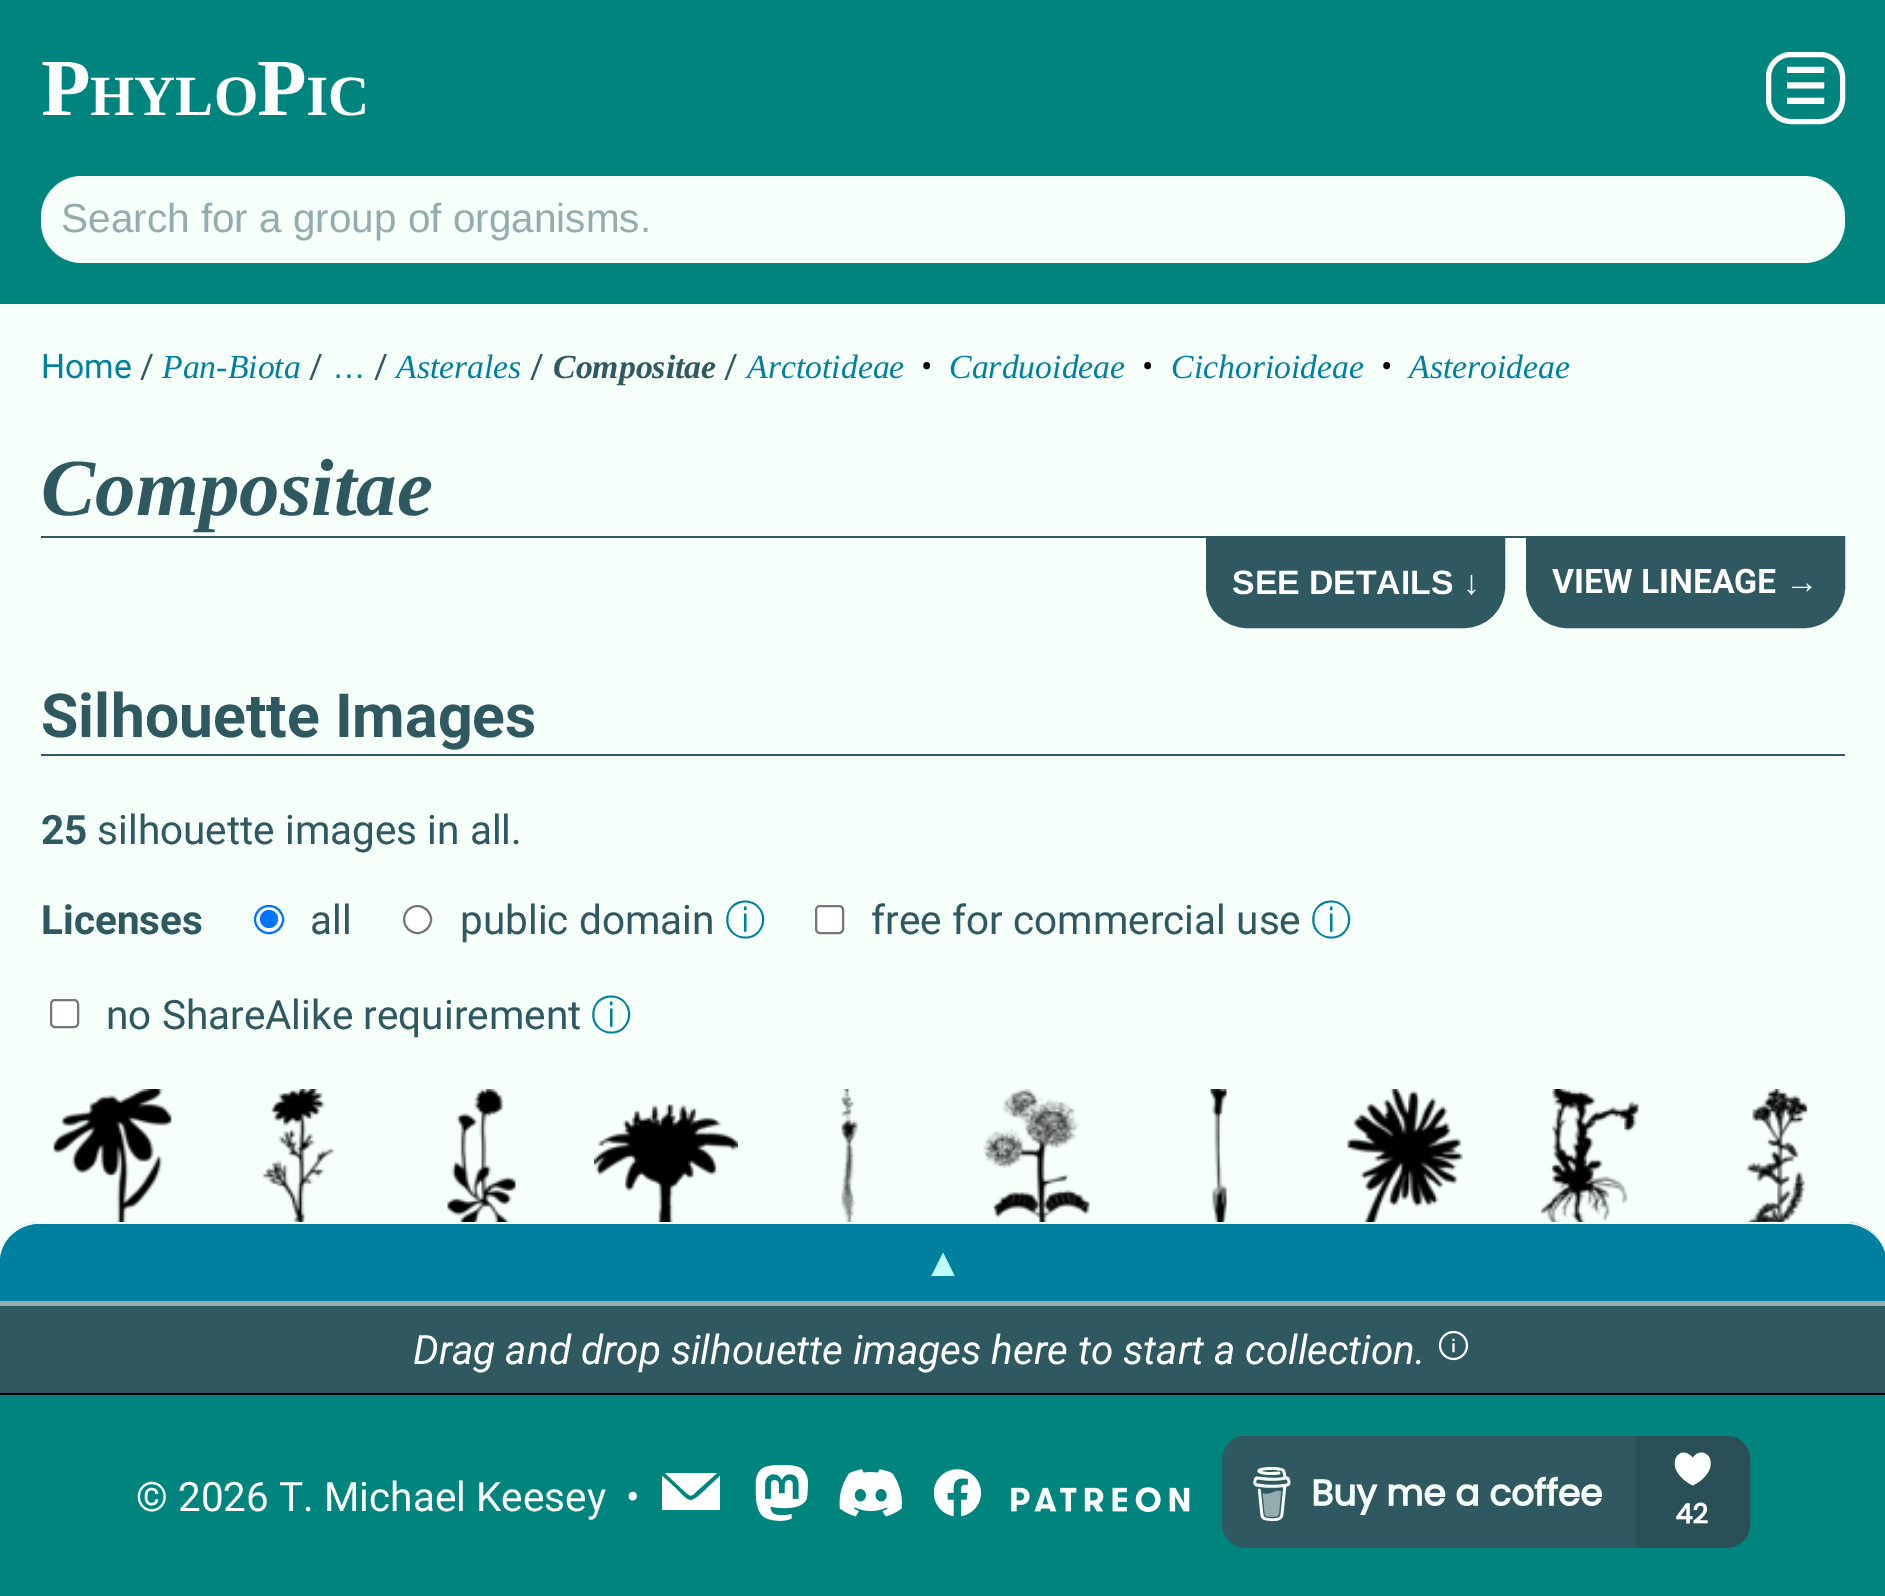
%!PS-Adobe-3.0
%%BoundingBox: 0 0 1885 1596
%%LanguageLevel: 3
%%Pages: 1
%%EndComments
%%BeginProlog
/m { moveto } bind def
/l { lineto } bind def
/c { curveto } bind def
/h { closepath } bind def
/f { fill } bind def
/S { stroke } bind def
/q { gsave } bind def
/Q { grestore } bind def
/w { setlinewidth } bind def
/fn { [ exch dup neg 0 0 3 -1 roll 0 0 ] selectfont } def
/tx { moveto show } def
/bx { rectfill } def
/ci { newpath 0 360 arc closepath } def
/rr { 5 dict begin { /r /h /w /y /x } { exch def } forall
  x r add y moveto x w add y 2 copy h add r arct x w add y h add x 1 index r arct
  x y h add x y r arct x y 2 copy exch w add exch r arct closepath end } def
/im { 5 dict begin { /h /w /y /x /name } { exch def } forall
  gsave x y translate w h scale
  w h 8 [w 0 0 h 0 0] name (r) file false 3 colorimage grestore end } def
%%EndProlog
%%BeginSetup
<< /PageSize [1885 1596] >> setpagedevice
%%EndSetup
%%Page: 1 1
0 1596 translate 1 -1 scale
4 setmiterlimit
0.969 1 0.984 setrgbcolor
0 0 1885 1596 bx
0 0.522 0.494 setrgbcolor
0 0 1885 304 bx
/LiberationSerif-Bold 81 fn
1 setgray
(P) 41 115 tx
/LiberationSerif-Bold 57 fn
(HYLO) 90 115 tx
/LiberationSerif-Bold 81 fn
(P) 257 115 tx
/LiberationSerif-Bold 57 fn
(IC) 306 115 tx
5 w
1768.5 54.5 74 67 22.5 rr S
/DejaVuSans-Bold 49 fn
(☰) 1783 104 tx
0.969 1 0.984 setrgbcolor
41 176 1804 87 41 rr f
/LiberationSans-Regular 40.5 fn
0.58 0.675 0.682 setrgbcolor
(Search for a group of organisms.) 61 232 tx
/Roboto-Regular 33.75 fn
0 0.502 0.624 setrgbcolor
(Home) 41 378 tx
0.188 0.345 0.376 setrgbcolor
(/) 140 378 tx
/LiberationSerif-Italic 33.75 fn
0 0.502 0.624 setrgbcolor
(Pan-Biota) 162 378 tx
/Roboto-Regular 33.75 fn
0.188 0.345 0.376 setrgbcolor
(/) 309 378 tx
/LiberationSans-Regular 33.75 fn
0 0.502 0.624 setrgbcolor
(…) 332 378 tx
/Roboto-Regular 33.75 fn
0.188 0.345 0.376 setrgbcolor
(/) 374 378 tx
/LiberationSerif-Italic 33.75 fn
0 0.502 0.624 setrgbcolor
(Asterales) 396 378 tx
/Roboto-Regular 33.75 fn
0.188 0.345 0.376 setrgbcolor
(/) 530 378 tx
/LiberationSerif-BoldItalic 33.75 fn
(Compositae) 553 378 tx
/Roboto-Regular 33.75 fn
(/) 724 378 tx
/LiberationSerif-Italic 33.75 fn
0 0.502 0.624 setrgbcolor
(Arctotideae) 747 378 tx
/Roboto-Regular 33.75 fn
0 setgray
(•) 921 378 tx
/LiberationSerif-Italic 33.75 fn
0 0.502 0.624 setrgbcolor
(Carduoideae) 949 378 tx
/Roboto-Regular 33.75 fn
0 setgray
(•) 1142 378 tx
/LiberationSerif-Italic 33.75 fn
0 0.502 0.624 setrgbcolor
(Cichorioideae) 1171 378 tx
/Roboto-Regular 33.75 fn
0 setgray
(•) 1381 378 tx
/LiberationSerif-Italic 33.75 fn
0 0.502 0.624 setrgbcolor
(Asteroideae) 1409 378 tx
0.188 0.345 0.376 setrgbcolor
41 536 1485 2 bx
/LiberationSerif-BoldItalic 81 fn
(Compositae) 41 515 tx
1207 537 m 1504 537 l 1504 587 l 1504 609 1486 627 1464 627 c 1247 627 l 1225 627 1207 609 1207 587 c h q f Q
2 w
S
/LiberationSans-Bold 33.75 fn
1 setgray
(SEE DETAILS ↓) 1232 594 tx
0.188 0.345 0.376 setrgbcolor
1527 537 m 1844 537 l 1844 587 l 1844 609 1826 627 1804 627 c 1567 627 l 1545 627 1527 609 1527 587 c h q f Q
S
/Roboto-Bold 33.75 fn
1 setgray
(VIEW LINEAGE) 1552 593 tx
/LiberationSans-Bold 33.75 fn
(→) 1785 593 tx
0.188 0.345 0.376 setrgbcolor
41 754 1804 2 bx
/Roboto-Bold 60.75 fn
(Silhouette Images) 41 737 tx
/Roboto-Bold 40.5 fn
(25) 41 844 tx
/Roboto-Regular 40.5 fn
(silhouette images in all.) 97 844 tx
/Roboto-Bold 40.5 fn
(Licenses) 41 934 tx
1 setgray
255 906 28 27 13.5 rr q f Q
0 0.459 1 setrgbcolor
S
269 919 9 ci f
/Roboto-Regular 40.5 fn
0.188 0.345 0.376 setrgbcolor
(all) 310 934 tx
1 setgray
417.5 919.5 13.5 ci q f Q
0.463 setgray
S
0.188 0.345 0.376 setrgbcolor
(public domain) 460 934 tx
/WenQuanYiZenHei-Medium 40.5 fn
0 0.502 0.624 setrgbcolor
(ⓘ) 725 934 tx
1 setgray
816 906 27 27 4 rr q f Q
0.463 setgray
S
/Roboto-Regular 40.5 fn
0.188 0.345 0.376 setrgbcolor
(free for commercial use) 871 934 tx
/WenQuanYiZenHei-Medium 40.5 fn
0 0.502 0.624 setrgbcolor
(ⓘ) 1311 934 tx
1 setgray
51 1000 27 27 4 rr q f Q
0.463 setgray
S
/Roboto-Regular 40.5 fn
0.188 0.345 0.376 setrgbcolor
(no ShareAlike requirement) 106 1029 tx
/WenQuanYiZenHei-Medium 40.5 fn
0 0.502 0.624 setrgbcolor
(ⓘ) 591 1029 tx
(image0.raw) 53 1089 119 133 im
(image1.raw) 262 1089 72 133 im
(image2.raw) 447 1089 69 133 im
(image3.raw) 594 1104 144 118 im
(image4.raw) 841 1089 17 133 im
(image5.raw) 983 1089 107 133 im
(image6.raw) 1210 1089 17 133 im
(image7.raw) 1347 1089 116 133 im
(image8.raw) 1540 1089 99 133 im
(image9.raw) 1744 1089 64 133 im
0.188 0.345 0.376 setrgbcolor
41 1222 m 1845 1222 l 1867.5 1222 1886 1240.5 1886 1263 c 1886 1395 l 0 1395 l 0 1263 l 0 1240.5 18.5 1222 41 1222 c h f
0.969 1 0.984 setrgbcolor
40 1222 m 1845 1222 l 1865 1222 1882 1237 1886 1256 c 1882 1238 1865 1224 1845 1224 c 40 1224 l 18 1224 0 1241 0 1262 c 0 1240 18 1222 40 1222 c h f
0 setgray
0 1393 1885 2 bx
0 0.502 0.624 setrgbcolor
40 1224 m 18 1224 0 1241 0 1262 c 0 1305 l 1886 1305 l 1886 1262 l 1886 1241 1867 1224 1845 1224 c h f
0.58 0.675 0.682 setrgbcolor
0 1301 1885 5 bx
/LiberationSans-Regular 40.5 fn
0.753 1 1 setrgbcolor
(▲) 923 1276 tx
/Roboto-Italic 40.5 fn
1 setgray
(Drag and drop silhouette images here to start a collection.) 413 1364 tx
(image10.raw) 1438 1330 31 31 im
0 0.522 0.494 setrgbcolor
0 1395 1885 201 bx
/Roboto-Regular 40.5 fn
1 setgray
(© 2026 T. Michael Keesey) 136 1511 tx
(•) 626 1511 tx
720 1476 m 720 1510 l 662 1510 l 662 1476 l 697 1505 682 1511 720 1476 c h f
665 1473 m 717 1473 l 698 1490 l 690 1498 691 1497 682 1489 c h f
(image11.raw) 755 1465 53 56 im
(image12.raw) 839 1469 63 48 im
(image13.raw) 934 1469 47 48 im
(image14.raw) 1011 1487 179 25 im
(image15.raw) 1222 1436 529 112 im
showpage
%%EOF
